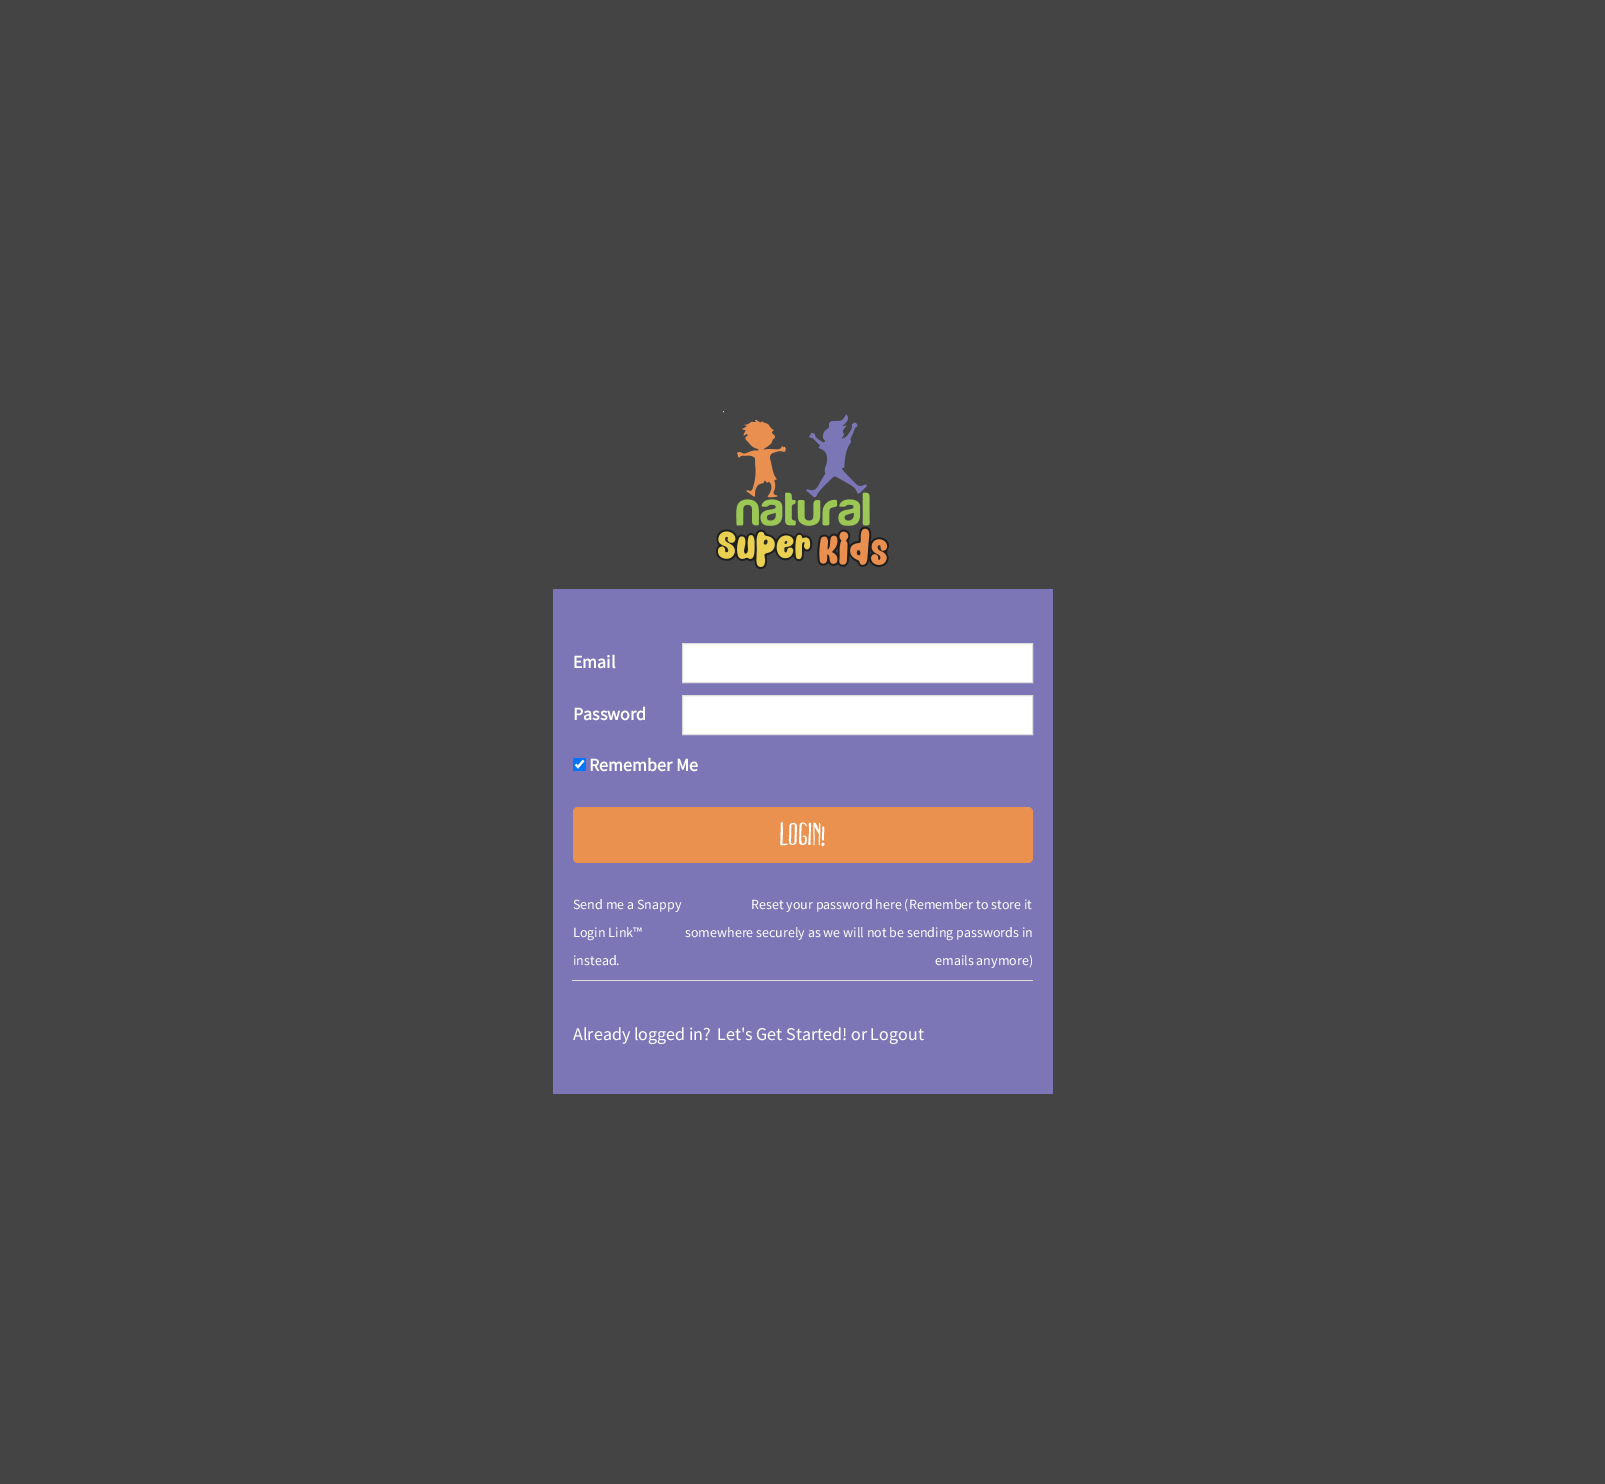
%!PS-Adobe-3.0
%%BoundingBox: 0 0 1605 1484
%%LanguageLevel: 3
%%Pages: 1
%%EndComments
%%BeginProlog
/m { moveto } bind def
/l { lineto } bind def
/h { closepath } bind def
/f { fill } bind def
/S { stroke } bind def
/q { gsave } bind def
/Q { grestore } bind def
/w { setlinewidth } bind def
/fn { [ exch dup neg 0 0 3 -1 roll 0 0 ] selectfont } def
/tx { moveto show } def
/bx { rectfill } def
/rr { 5 dict begin { /r /h /w /y /x } { exch def } forall
  x r add y moveto x w add y 2 copy h add r arct x w add y h add x 1 index r arct
  x y h add x y r arct x y 2 copy exch w add exch r arct closepath end } def
/im { 5 dict begin { /h /w /y /x /name } { exch def } forall
  gsave x y translate w h scale
  w h 8 [w 0 0 h 0 0] name (r) file false 3 colorimage grestore end } def
%%EndProlog
%%BeginSetup
<< /PageSize [1605 1484] >> setpagedevice
%%EndSetup
%%Page: 1 1
0 1484 translate 1 -1 scale
4 setmiterlimit
0.267 setgray
0 0 1605 1484 bx
(image0.raw) 716 411 173 158 im
0.486 0.463 0.714 setrgbcolor
553 589 500 505 bx
0.867 setgray
572 980 461 1 bx
/SourceSansPro-Bold 18 fn
1 setgray
(Email) 573 668 tx
682.5 643.5 m 1032.5 643.5 l 1032.5 682.5 l 682.5 682.5 l h q f Q
0.867 setgray
S
1 setgray
(Password) 573 720 tx
682.5 695.5 m 1032.5 695.5 l 1032.5 734.5 l 682.5 734.5 l h q f Q
0.867 setgray
S
0 0.459 1 setrgbcolor
573 758 13 13 2 rr f
1 setgray
2.1 w
575.5 764.5 m 578 767 l 583.5 760.5 l S
(Remember Me) 589 771 tx
0.918 0.569 0.314 setrgbcolor
573 807 460 56 5 rr f
/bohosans-Bold 32 fn
1 setgray
(LOGIN!) 779 845 tx
/SourceSansPro-Regular 14 fn
(Send me a Snappy) 573 909 tx
(Login Link™) 573 937 tx
(instead.) 573 965 tx
(Reset your password here \(Remember to store it) 751 909 tx
(somewhere securely as we will not be sending passwords in) 685 937 tx
(emails anymore\)) 935 965 tx
/SourceSansPro-Regular 18 fn
(Already logged in?) 573 1040 tx
(Let's Get Started! or Logout) 717 1040 tx
showpage
%%EOF
